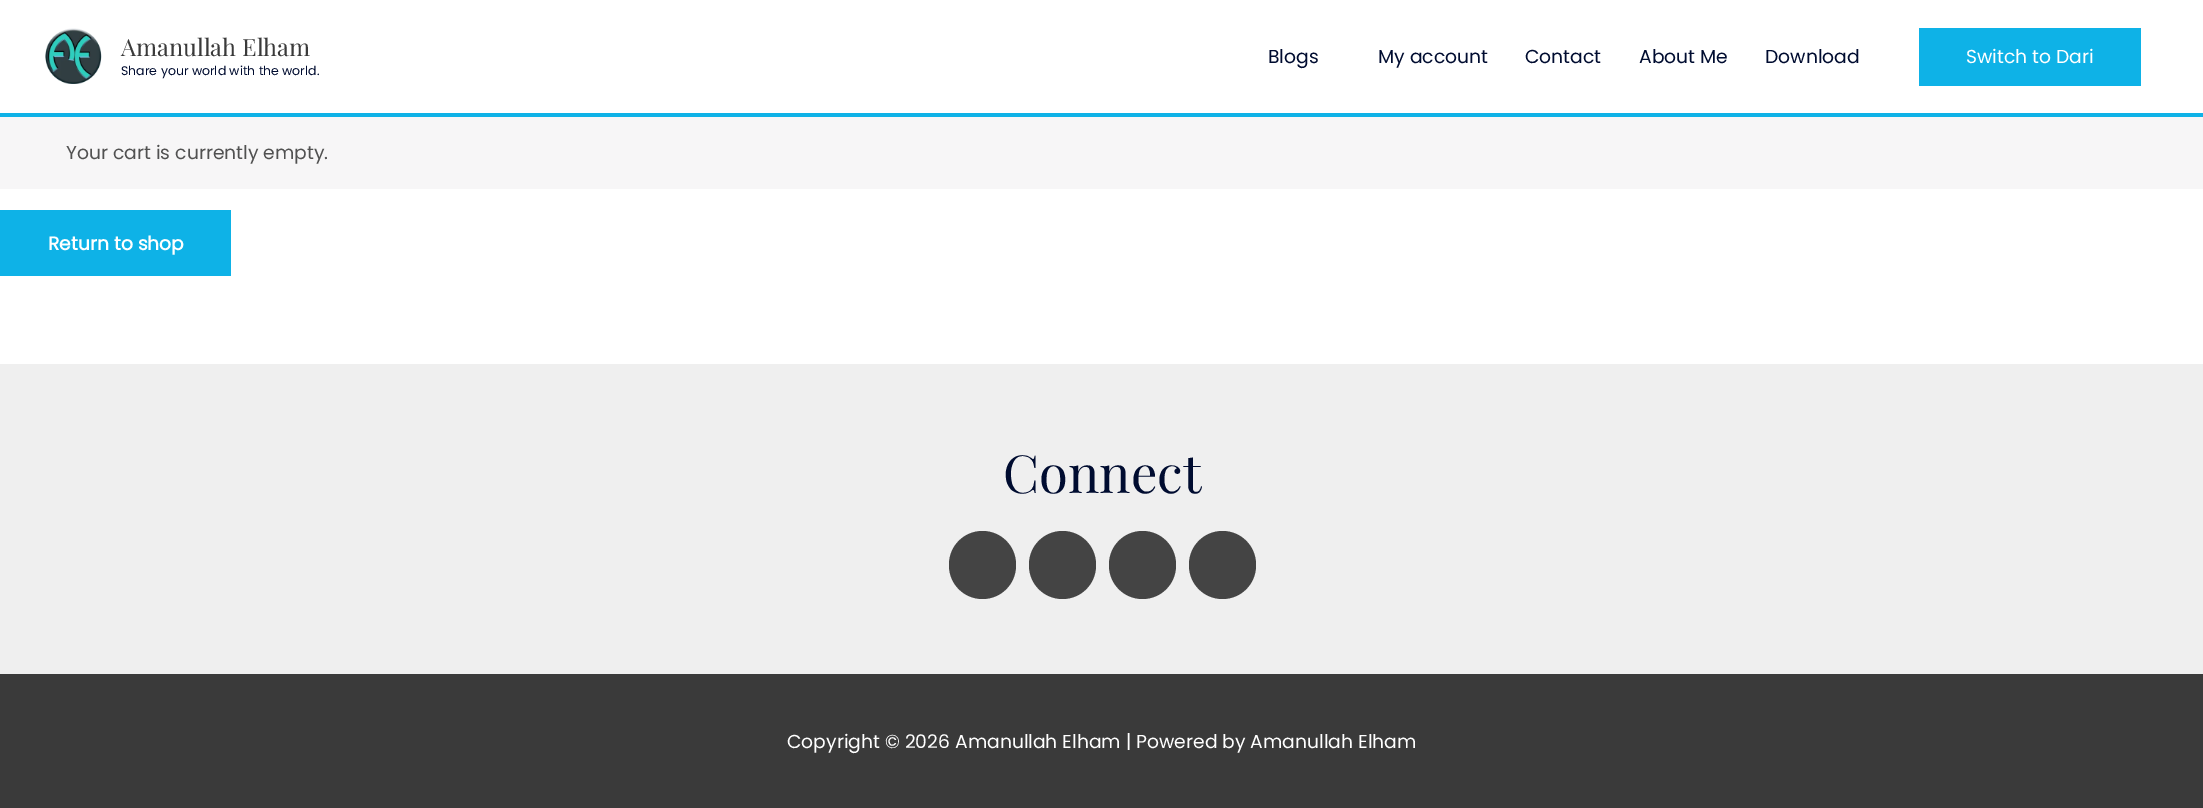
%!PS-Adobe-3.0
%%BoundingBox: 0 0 2203 808
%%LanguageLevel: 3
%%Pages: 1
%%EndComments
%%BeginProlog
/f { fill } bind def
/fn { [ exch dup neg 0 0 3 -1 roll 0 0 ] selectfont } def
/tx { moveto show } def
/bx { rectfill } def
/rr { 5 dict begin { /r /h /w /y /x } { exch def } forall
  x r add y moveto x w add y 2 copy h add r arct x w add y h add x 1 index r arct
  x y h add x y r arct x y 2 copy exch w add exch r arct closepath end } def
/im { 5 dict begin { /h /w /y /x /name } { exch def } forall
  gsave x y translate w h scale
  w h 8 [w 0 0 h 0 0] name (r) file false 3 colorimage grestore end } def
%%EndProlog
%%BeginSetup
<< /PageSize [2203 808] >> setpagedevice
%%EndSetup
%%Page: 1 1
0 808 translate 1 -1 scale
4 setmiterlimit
1 setgray
0 0 2203 808 bx
(image0.raw) 45 28 57 56 im
/PlayfairDisplay-Regular 23.75 fn
0.227 setgray
(Amanullah Elham) 121 56 tx
/Poppins-Regular 12.5 fn
0 0.047 0.188 setrgbcolor
(Share your world with the world.) 121 75 tx
/Poppins-Regular 18.75 fn
(Blogs) 1268 63 tx
(My account) 1378 63 tx
(Contact) 1525 63 tx
(About Me) 1639 63 tx
(Download) 1765 63 tx
0.055 0.698 0.906 setrgbcolor
1919 28 222 58 bx
1 setgray
(Switch to Dari) 1966 63 tx
0.969 0.965 0.969 setrgbcolor
0 117 2203 72 bx
0.055 0.698 0.906 setrgbcolor
0 113 2203 4 bx
0.318 setgray
(Your cart is currently empty.) 66 159 tx
0.055 0.698 0.906 setrgbcolor
0 210 231 66 bx
/Poppins-Bold 18.75 fn
1 setgray
(Return to shop) 48 250 tx
0.937 setgray
0 364 2203 310 bx
/PlayfairDisplay-Regular 52.5 fn
0 0.047 0.188 setrgbcolor
(Connect) 1003 493 tx
0.267 setgray
949 531 67 68 33.5 rr f
1029 531 67 68 33.5 rr f
1109 531 67 68 33.5 rr f
1189 531 67 68 33.5 rr f
0.227 setgray
0 674 2203 134 bx
/Poppins-Regular 18.75 fn
1 setgray
(Copyright © 2026 Amanullah Elham | Powered by Amanullah Elham) 787 748 tx
showpage
%%EOF
